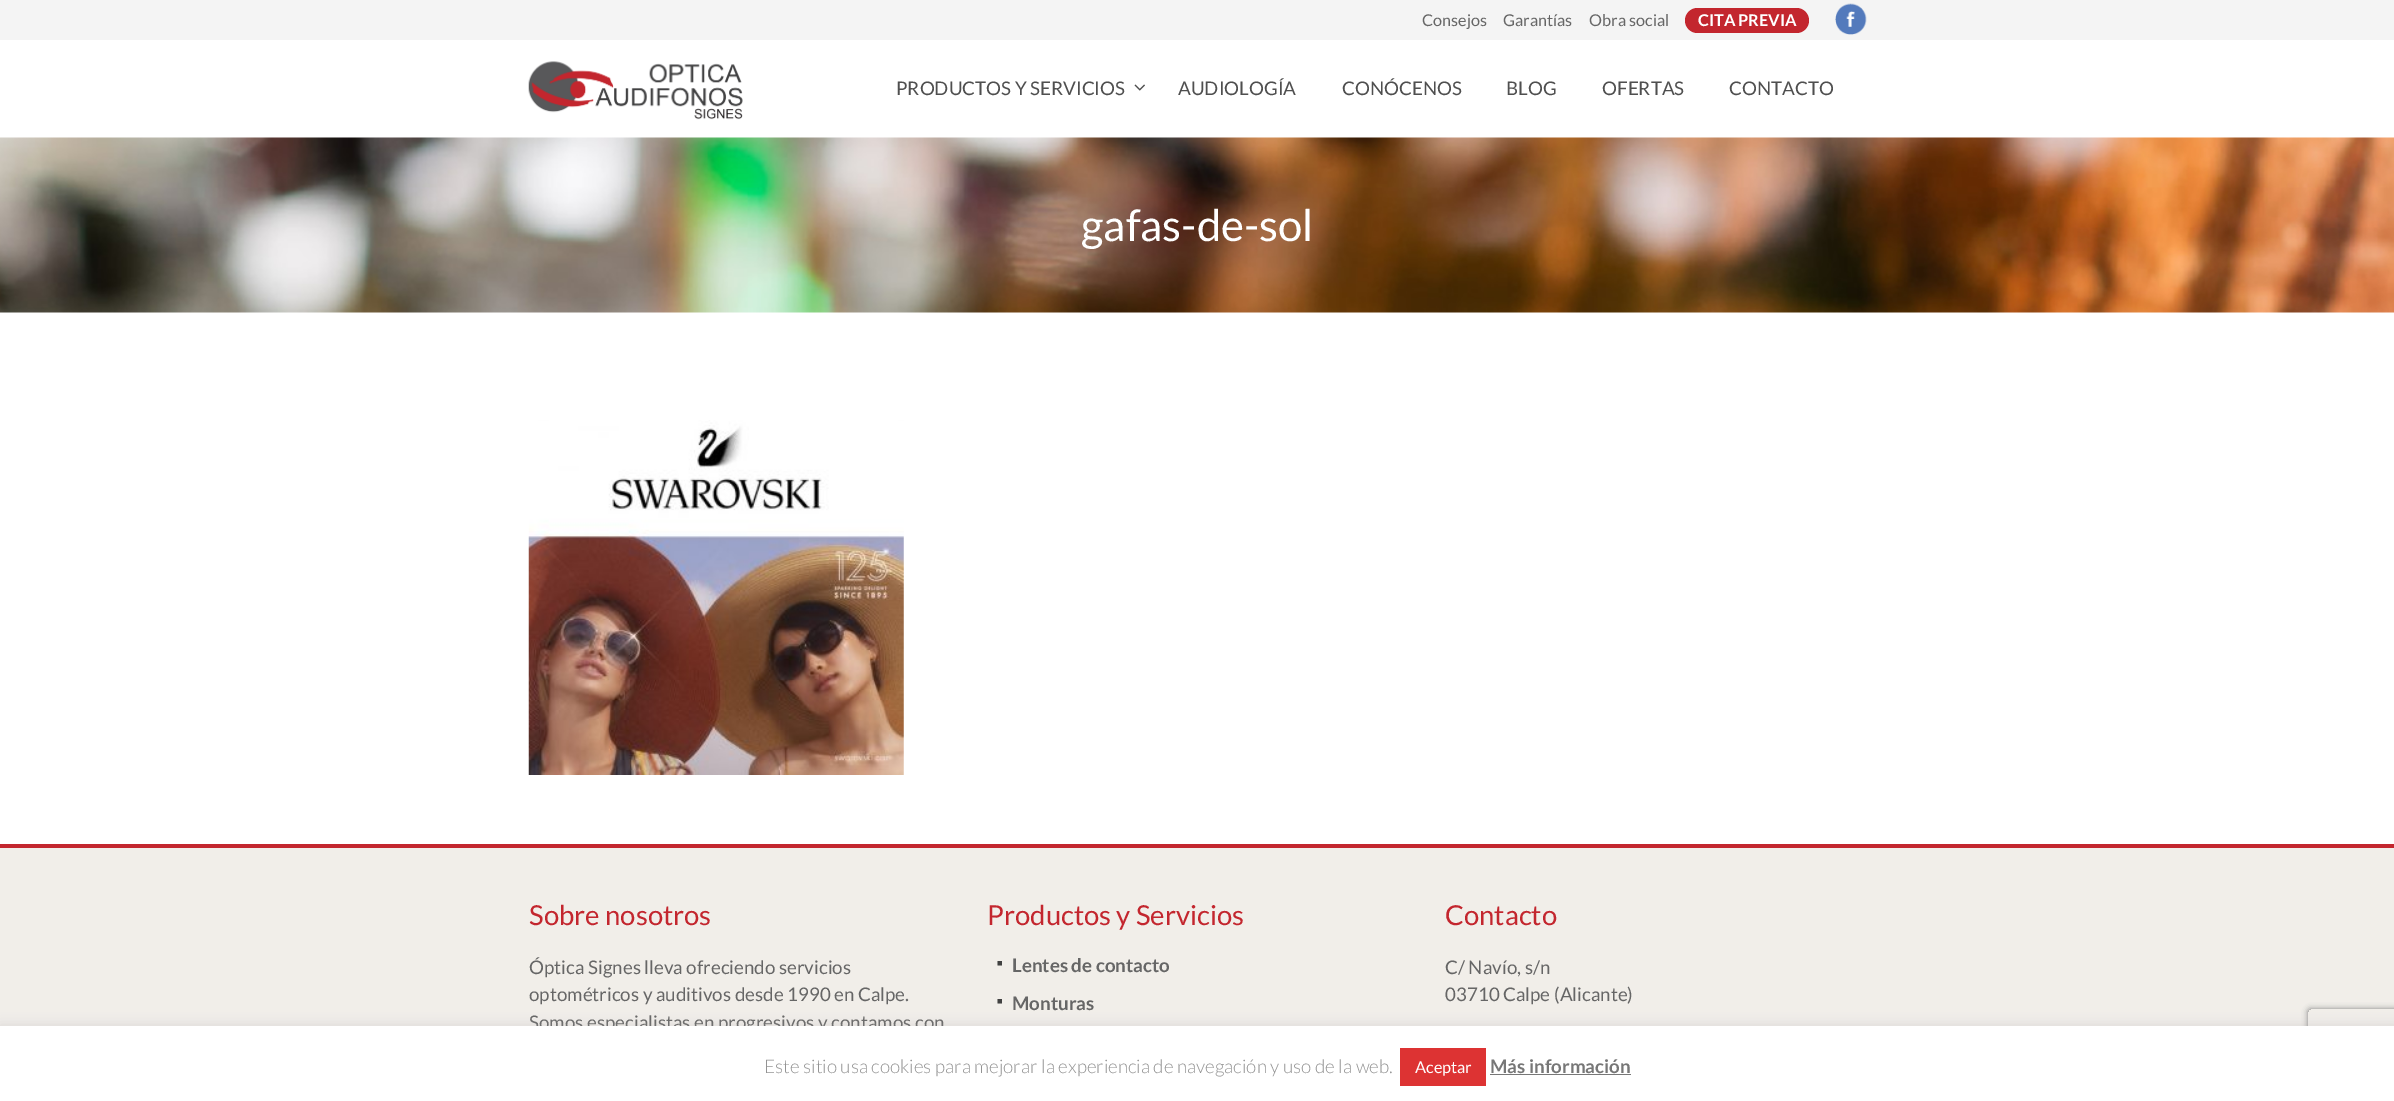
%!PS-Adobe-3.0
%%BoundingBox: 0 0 2394 1101
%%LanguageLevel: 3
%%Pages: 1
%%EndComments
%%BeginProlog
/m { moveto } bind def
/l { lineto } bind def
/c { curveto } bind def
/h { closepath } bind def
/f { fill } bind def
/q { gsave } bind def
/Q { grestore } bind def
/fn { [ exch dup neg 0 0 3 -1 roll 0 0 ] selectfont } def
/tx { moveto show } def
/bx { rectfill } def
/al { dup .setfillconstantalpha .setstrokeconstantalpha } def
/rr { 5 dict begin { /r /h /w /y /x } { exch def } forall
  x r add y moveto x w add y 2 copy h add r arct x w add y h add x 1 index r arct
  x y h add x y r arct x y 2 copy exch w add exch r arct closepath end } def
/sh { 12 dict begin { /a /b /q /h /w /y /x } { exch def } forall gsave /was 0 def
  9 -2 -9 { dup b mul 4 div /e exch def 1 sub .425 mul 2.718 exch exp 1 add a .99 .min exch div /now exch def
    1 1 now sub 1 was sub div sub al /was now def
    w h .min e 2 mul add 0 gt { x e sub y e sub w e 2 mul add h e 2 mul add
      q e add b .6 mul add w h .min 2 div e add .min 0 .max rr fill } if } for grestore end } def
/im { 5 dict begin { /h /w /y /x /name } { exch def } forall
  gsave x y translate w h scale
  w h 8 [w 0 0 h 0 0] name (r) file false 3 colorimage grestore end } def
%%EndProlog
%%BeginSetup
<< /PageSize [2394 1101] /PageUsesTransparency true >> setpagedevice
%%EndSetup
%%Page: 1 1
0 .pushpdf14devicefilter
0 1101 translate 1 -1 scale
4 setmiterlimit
1 setgray
0 0 2394 1101 bx
0.957 setgray
0 0 2394 40 bx
/Lato-Regular 16.25 fn
0.4 setgray
(Consejos) 1422 26 tx
(Garantías) 1503 26 tx
(Obra social) 1589 26 tx
0.765 0.149 0.18 setrgbcolor
1685 8 124 25 12.5 rr f
/Lato-Bold 16.25 fn
1 setgray
(CITA PREVIA) 1698 26 tx
(image0.raw) 1835 3 32 32 im
(image1.raw) 528 61 215 59 im
/Lato-Regular 18.75 fn
0.31 setgray
(PRODUCTOS Y SERVICIOS) 896 95 tx
(image2.raw) 1134 84 11 7 im
(AUDIOLOGÍA) 1178 95 tx
(CONÓCENOS) 1342 95 tx
(BLOG) 1506 95 tx
(OFERTAS) 1602 95 tx
(CONTACTO) 1729 95 tx
(image3.raw) 0 137 2394 176 im
/Lato-Regular 43.75 fn
1 setgray
(gafas-de-sol) 1081 241 tx
(image4.raw) 528 420 376 355 im
0.945 0.933 0.914 setrgbcolor
0 848 2394 178 bx
0.765 0.149 0.18 setrgbcolor
0 844 2394 4 bx
/Lato-Regular 27.5 fn
(Sobre nosotros) 529 925 tx
/Lato-Regular 18.75 fn
0.4 setgray
(Óptica Signes lleva ofreciendo servicios) 529 974 tx
(optométricos y auditivos desde 1990 en Calpe.) 529 1001 tx
(Somos especialistas en progresivos y contamos con) 529 1029 tx
/Lato-Regular 27.5 fn
0.765 0.149 0.18 setrgbcolor
(Productos y Servicios) 987 925 tx
/LiberationSerif-Regular 9 fn
0.255 setgray
(■) 997 966 tx
/Lato-Bold 18.75 fn
0.4 setgray
(Lentes de contacto) 1012 972 tx
/LiberationSerif-Regular 9 fn
0.255 setgray
(■) 997 1004 tx
/Lato-Bold 18.75 fn
0.4 setgray
(Monturas) 1012 1010 tx
/Lato-Regular 27.5 fn
0.765 0.149 0.18 setrgbcolor
(Contacto) 1445 925 tx
/Lato-Regular 18.75 fn
0.4 setgray
(C/ Navío, s/n) 1445 974 tx
(03710 Calpe \(Alicante\)) 1445 1001 tx
0.675 0.671 0.671 setrgbcolor
0 1025 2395 75 0 6 0.3 sh
q
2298 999 m 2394 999 l 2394 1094 l 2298 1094 l h 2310.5 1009 m 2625.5 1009 l 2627 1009 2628 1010 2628 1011.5 c 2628 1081.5 l 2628 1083 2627 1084 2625.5 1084 c 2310.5 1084 l 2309 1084 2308 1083 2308 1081.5 c 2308 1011.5 l 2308 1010 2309 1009 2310.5 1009 c h eoclip newpath
0.502 setgray
2308 1009 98 75 2.5 3 1 sh
Q
1 setgray
0 1026 2394 75 bx
/Lato-Light 18.75 fn
0.576 setgray
(Este sitio usa cookies para mejorar la experiencia de navegación y uso de la web.) 764 1073 tx
0.867 0.2 0.2 setrgbcolor
1400 1048 86 38 bx
/Lato-Regular 16.25 fn
1 setgray
(Aceptar) 1415 1073 tx
/Lato-Bold 18.75 fn
0.467 setgray
(Más información) 1490 1073 tx
1490 1074 141 1 bx
.poppdf14devicefilter showpage
%%EOF
